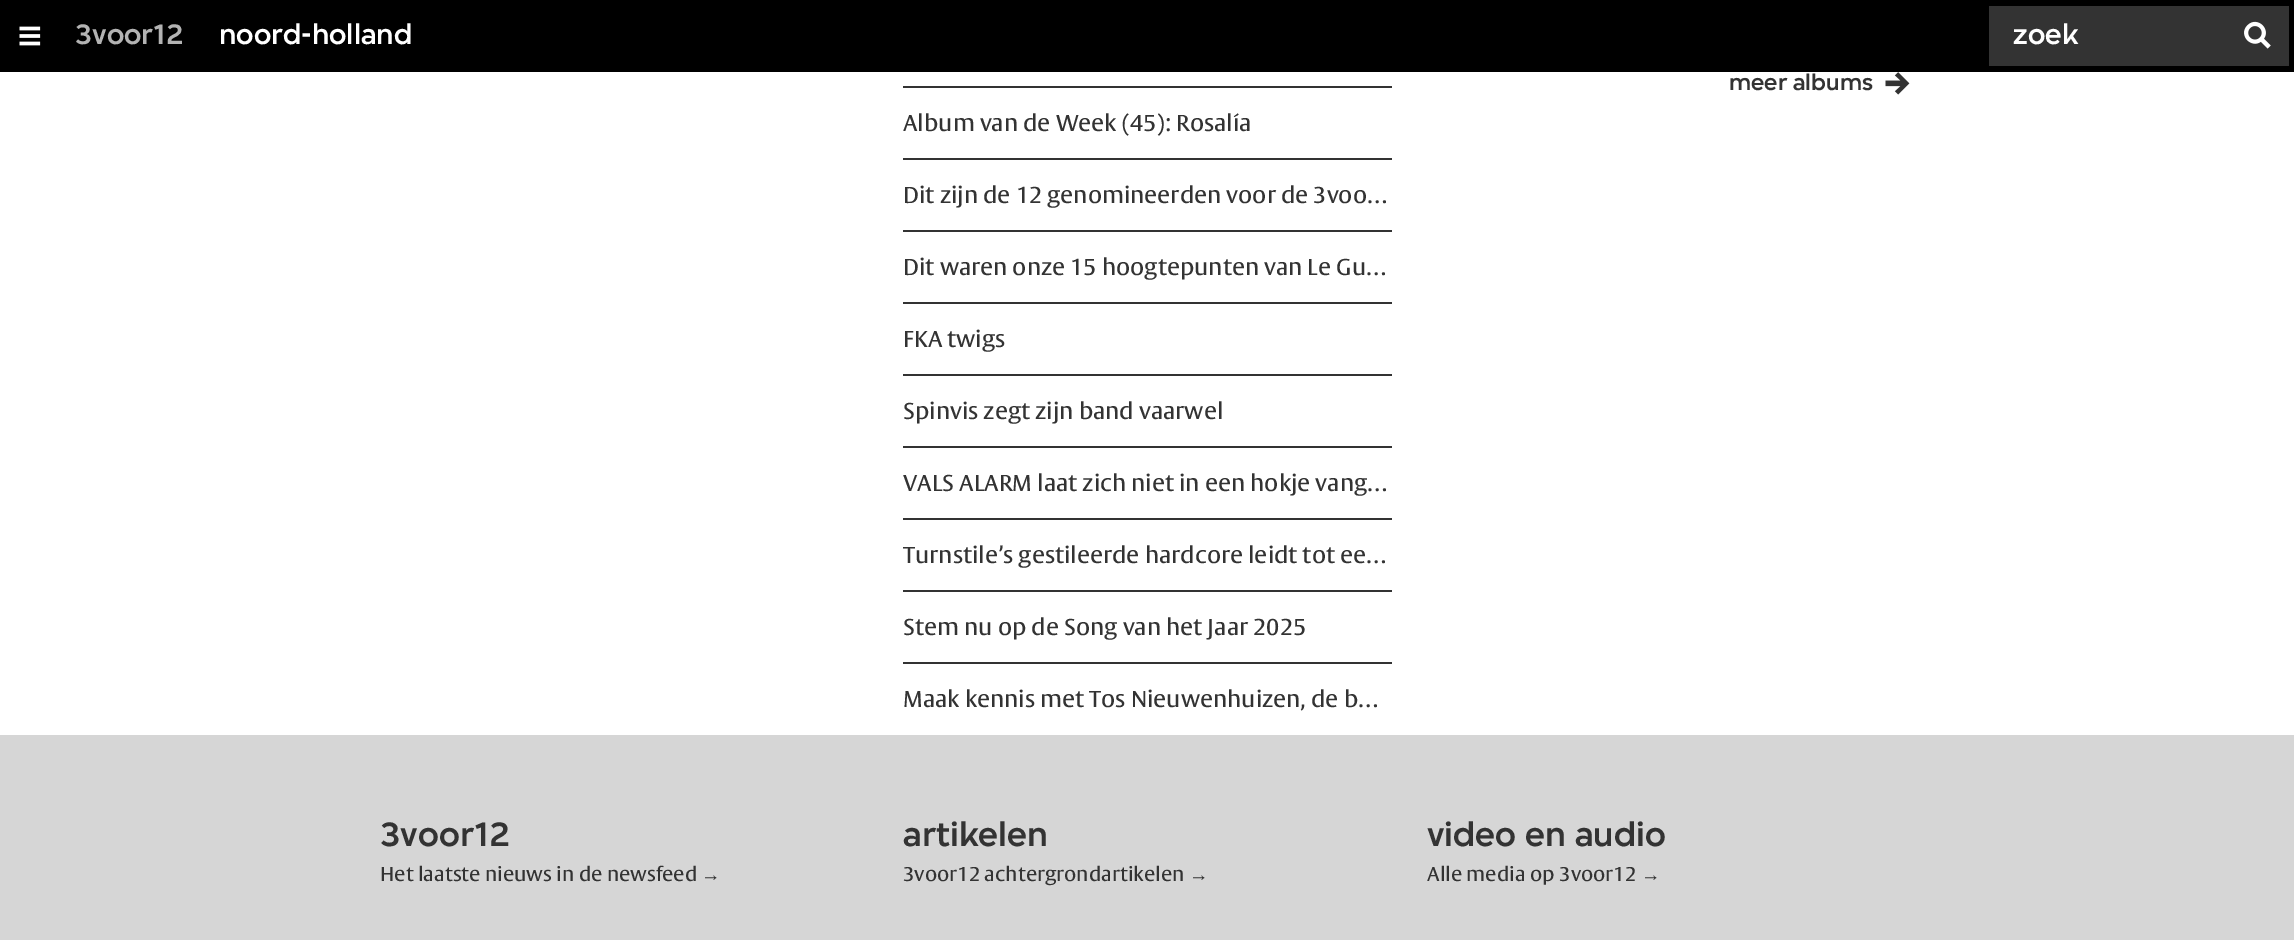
%!PS-Adobe-3.0
%%BoundingBox: 0 0 2294 940
%%LanguageLevel: 3
%%Pages: 1
%%EndComments
%%BeginProlog
/fn { [ exch dup neg 0 0 3 -1 roll 0 0 ] selectfont } def
/tx { moveto show } def
/bx { rectfill } def
/im { 5 dict begin { /h /w /y /x /name } { exch def } forall
  gsave x y translate w h scale
  w h 8 [w 0 0 h 0 0] name (r) file false 3 colorimage grestore end } def
%%EndProlog
%%BeginSetup
<< /PageSize [2294 940] >> setpagedevice
%%EndSetup
%%Page: 1 1
0 940 translate 1 -1 scale
4 setmiterlimit
1 setgray
0 0 2294 940 bx
0 setgray
0 0 2294 72 bx
(image0.raw) 19 26 22 20 im
/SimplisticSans-Medium 30 fn
0.702 setgray
(3voor12) 75 44 tx
1 setgray
(noord-holland) 219 44 tx
0.2 setgray
1989 6 300 60 bx
1 setgray
(zoek) 2013 44 tx
(image1.raw) 2244 21 27 28 im
/SimplisticSans-Medium 24 fn
0.2 setgray
(meer albums) 1729 90 tx
(image2.raw) 1885 72 25 23 im
903 86 489 2 bx
903 158 489 2 bx
/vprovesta-Regular 22.5 fn
(Album van de Week \(45\): Rosalía) 903 131 tx
903 230 489 2 bx
(Dit zijn de 12 genomineerden voor de 3voo…) 903 203 tx
903 302 489 2 bx
(Dit waren onze 15 hoogtepunten van Le Gu…) 903 275 tx
903 374 489 2 bx
(FKA twigs) 903 347 tx
903 446 489 2 bx
(Spinvis zegt zijn band vaarwel) 903 419 tx
903 518 489 2 bx
(VALS ALARM laat zich niet in een hokje vang…) 903 491 tx
903 590 489 2 bx
(Turnstile’s gestileerde hardcore leidt tot ee…) 903 563 tx
903 662 489 2 bx
(Stem nu op de Song van het Jaar 2025) 903 635 tx
(Maak kennis met Tos Nieuwenhuizen, de b…) 903 707 tx
0.839 setgray
0 735 2294 205 bx
/SimplisticSans-Medium 36 fn
0.2 setgray
(3voor12) 380 846 tx
/vprovesta-Regular 19.5 fn
(Het laatste nieuws in de newsfeed) 380 881 tx
/LiberationSans-Regular 19.5 fn
(→) 701 881 tx
/SimplisticSans-Medium 36 fn
(artikelen) 903 846 tx
/vprovesta-Regular 19.5 fn
(3voor12 achtergrondartikelen) 903 881 tx
/LiberationSans-Regular 19.5 fn
(→) 1189 881 tx
/SimplisticSans-Medium 36 fn
(video en audio) 1427 846 tx
/vprovesta-Regular 19.5 fn
(Alle media op 3voor12) 1427 881 tx
/LiberationSans-Regular 19.5 fn
(→) 1641 881 tx
showpage
%%EOF
